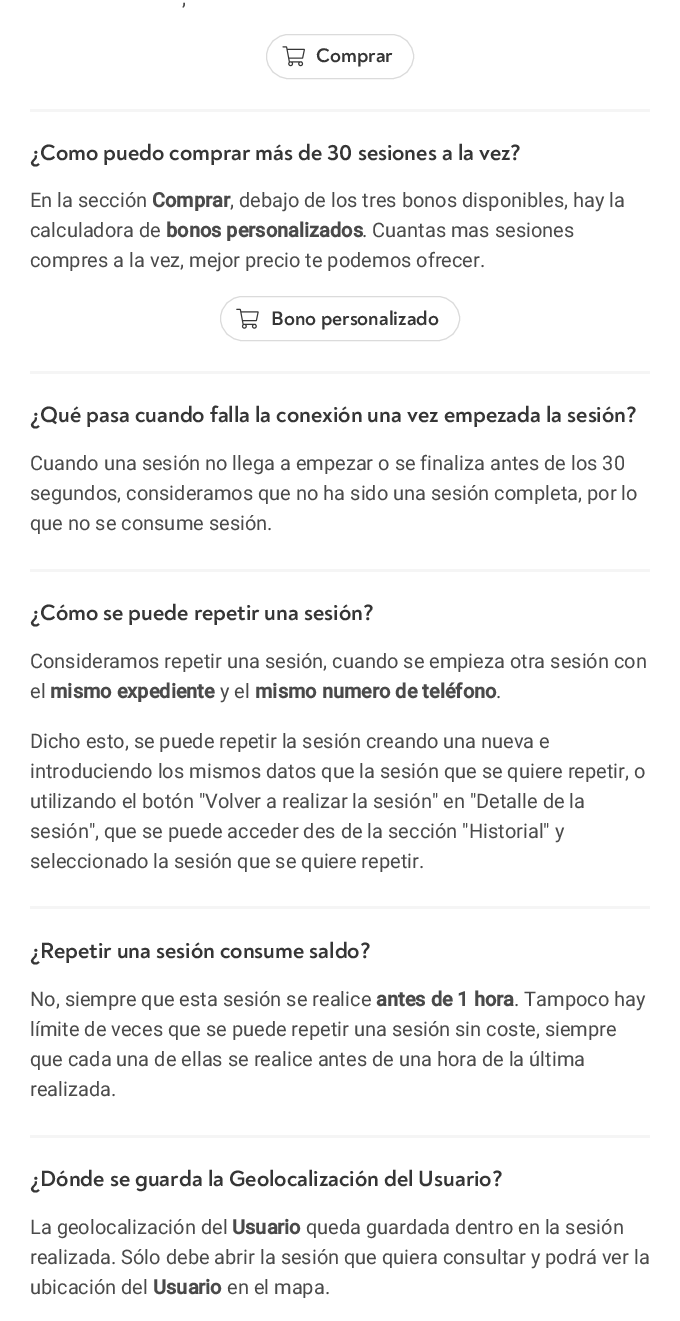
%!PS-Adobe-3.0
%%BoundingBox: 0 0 680 1321
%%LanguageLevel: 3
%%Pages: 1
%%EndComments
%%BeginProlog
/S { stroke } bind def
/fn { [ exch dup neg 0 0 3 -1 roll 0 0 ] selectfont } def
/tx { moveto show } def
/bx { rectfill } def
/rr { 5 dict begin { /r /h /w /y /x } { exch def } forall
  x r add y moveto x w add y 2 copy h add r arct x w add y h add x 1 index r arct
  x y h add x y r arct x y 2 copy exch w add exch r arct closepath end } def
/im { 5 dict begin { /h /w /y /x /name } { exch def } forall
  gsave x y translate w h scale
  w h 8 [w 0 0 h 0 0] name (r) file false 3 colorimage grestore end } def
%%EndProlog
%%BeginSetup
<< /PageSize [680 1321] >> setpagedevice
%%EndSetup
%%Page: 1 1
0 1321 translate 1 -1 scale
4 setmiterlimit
1 setgray
0 0 680 1321 bx
/Roboto-Regular 20 fn
0.29 setgray
(,) 182 5 tx
0.859 setgray
266.5 34.5 147 44 22 rr S
(image0.raw) 282 46 23 21 im
/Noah-Bold 20 fn
0.212 setgray
(Comprar) 316 62 tx
0.961 setgray
30 109 620 3 bx
/Noah-Bold 22.5 fn
0.212 setgray
(¿Como puedo comprar más de 30 sesiones a la vez?) 30 160 tx
/Roboto-Regular 20 fn
0.29 setgray
(En la sección) 30 207 tx
/Roboto-Bold 20 fn
(Comprar) 152 207 tx
/Roboto-Regular 20 fn
(, debajo de los tres bonos disponibles, hay la) 230 207 tx
(calculadora de) 30 237 tx
/Roboto-Bold 20 fn
(bonos personalizados) 166 237 tx
/Roboto-Regular 20 fn
(. Cuantas mas sesiones) 362 237 tx
(compres a la vez, mejor precio te podemos ofrecer.) 30 267 tx
0.859 setgray
220.5 296.5 239 44 22 rr S
(image1.raw) 236 308 23 21 im
/Noah-Bold 20 fn
0.212 setgray
(Bono personalizado) 271 325 tx
0.961 setgray
30 371 620 3 bx
/Noah-Bold 22.5 fn
0.212 setgray
(¿Qué pasa cuando falla la conexión una vez empezada la sesión?) 30 422 tx
/Roboto-Regular 20 fn
0.29 setgray
(Cuando una sesión no llega a empezar o se finaliza antes de los 30) 30 470 tx
(segundos, consideramos que no ha sido una sesión completa, por lo) 30 500 tx
(que no se consume sesión.) 30 530 tx
0.961 setgray
30 569 620 3 bx
/Noah-Bold 22.5 fn
0.212 setgray
(¿Cómo se puede repetir una sesión?) 30 620 tx
/Roboto-Regular 20 fn
0.29 setgray
(Consideramos repetir una sesión, cuando se empieza otra sesión con) 30 668 tx
(el) 30 698 tx
/Roboto-Bold 20 fn
(mismo expediente) 50 698 tx
/Roboto-Regular 20 fn
(y el) 220 698 tx
/Roboto-Bold 20 fn
(mismo numero de teléfono) 255 698 tx
/Roboto-Regular 20 fn
(.) 496 698 tx
(Dicho esto, se puede repetir la sesión creando una nueva e) 30 748 tx
(introduciendo los mismos datos que la sesión que se quiere repetir, o) 30 778 tx
(utilizando el botón "Volver a realizar la sesión" en "Detalle de la) 30 808 tx
(sesión", que se puede acceder des de la sección "Historial" y) 30 838 tx
(seleccionado la sesión que se quiere repetir.) 30 868 tx
0.961 setgray
30 906 620 3 bx
/Noah-Bold 22.5 fn
0.212 setgray
(¿Repetir una sesión consume saldo?) 30 958 tx
/Roboto-Regular 20 fn
0.29 setgray
(No, siempre que esta sesión se realice) 30 1006 tx
/Roboto-Bold 20 fn
(antes de 1 hora) 376 1006 tx
/Roboto-Regular 20 fn
(. Tampoco hay) 514 1006 tx
(límite de veces que se puede repetir una sesión sin coste, siempre) 30 1036 tx
(que cada una de ellas se realice antes de una hora de la última) 30 1066 tx
(realizada.) 30 1096 tx
0.961 setgray
30 1135 620 3 bx
/Noah-Bold 22.5 fn
0.212 setgray
(¿Dónde se guarda la Geolocalización del Usuario?) 30 1186 tx
/Roboto-Regular 20 fn
0.29 setgray
(La geolocalización del) 30 1234 tx
/Roboto-Bold 20 fn
(Usuario) 232 1234 tx
/Roboto-Regular 20 fn
(queda guardada dentro en la sesión) 306 1234 tx
(realizada. Sólo debe abrir la sesión que quiera consultar y podrá ver la) 30 1264 tx
(ubicación del) 30 1294 tx
/Roboto-Bold 20 fn
(Usuario) 153 1294 tx
/Roboto-Regular 20 fn
(en el mapa.) 227 1294 tx
showpage
%%EOF
